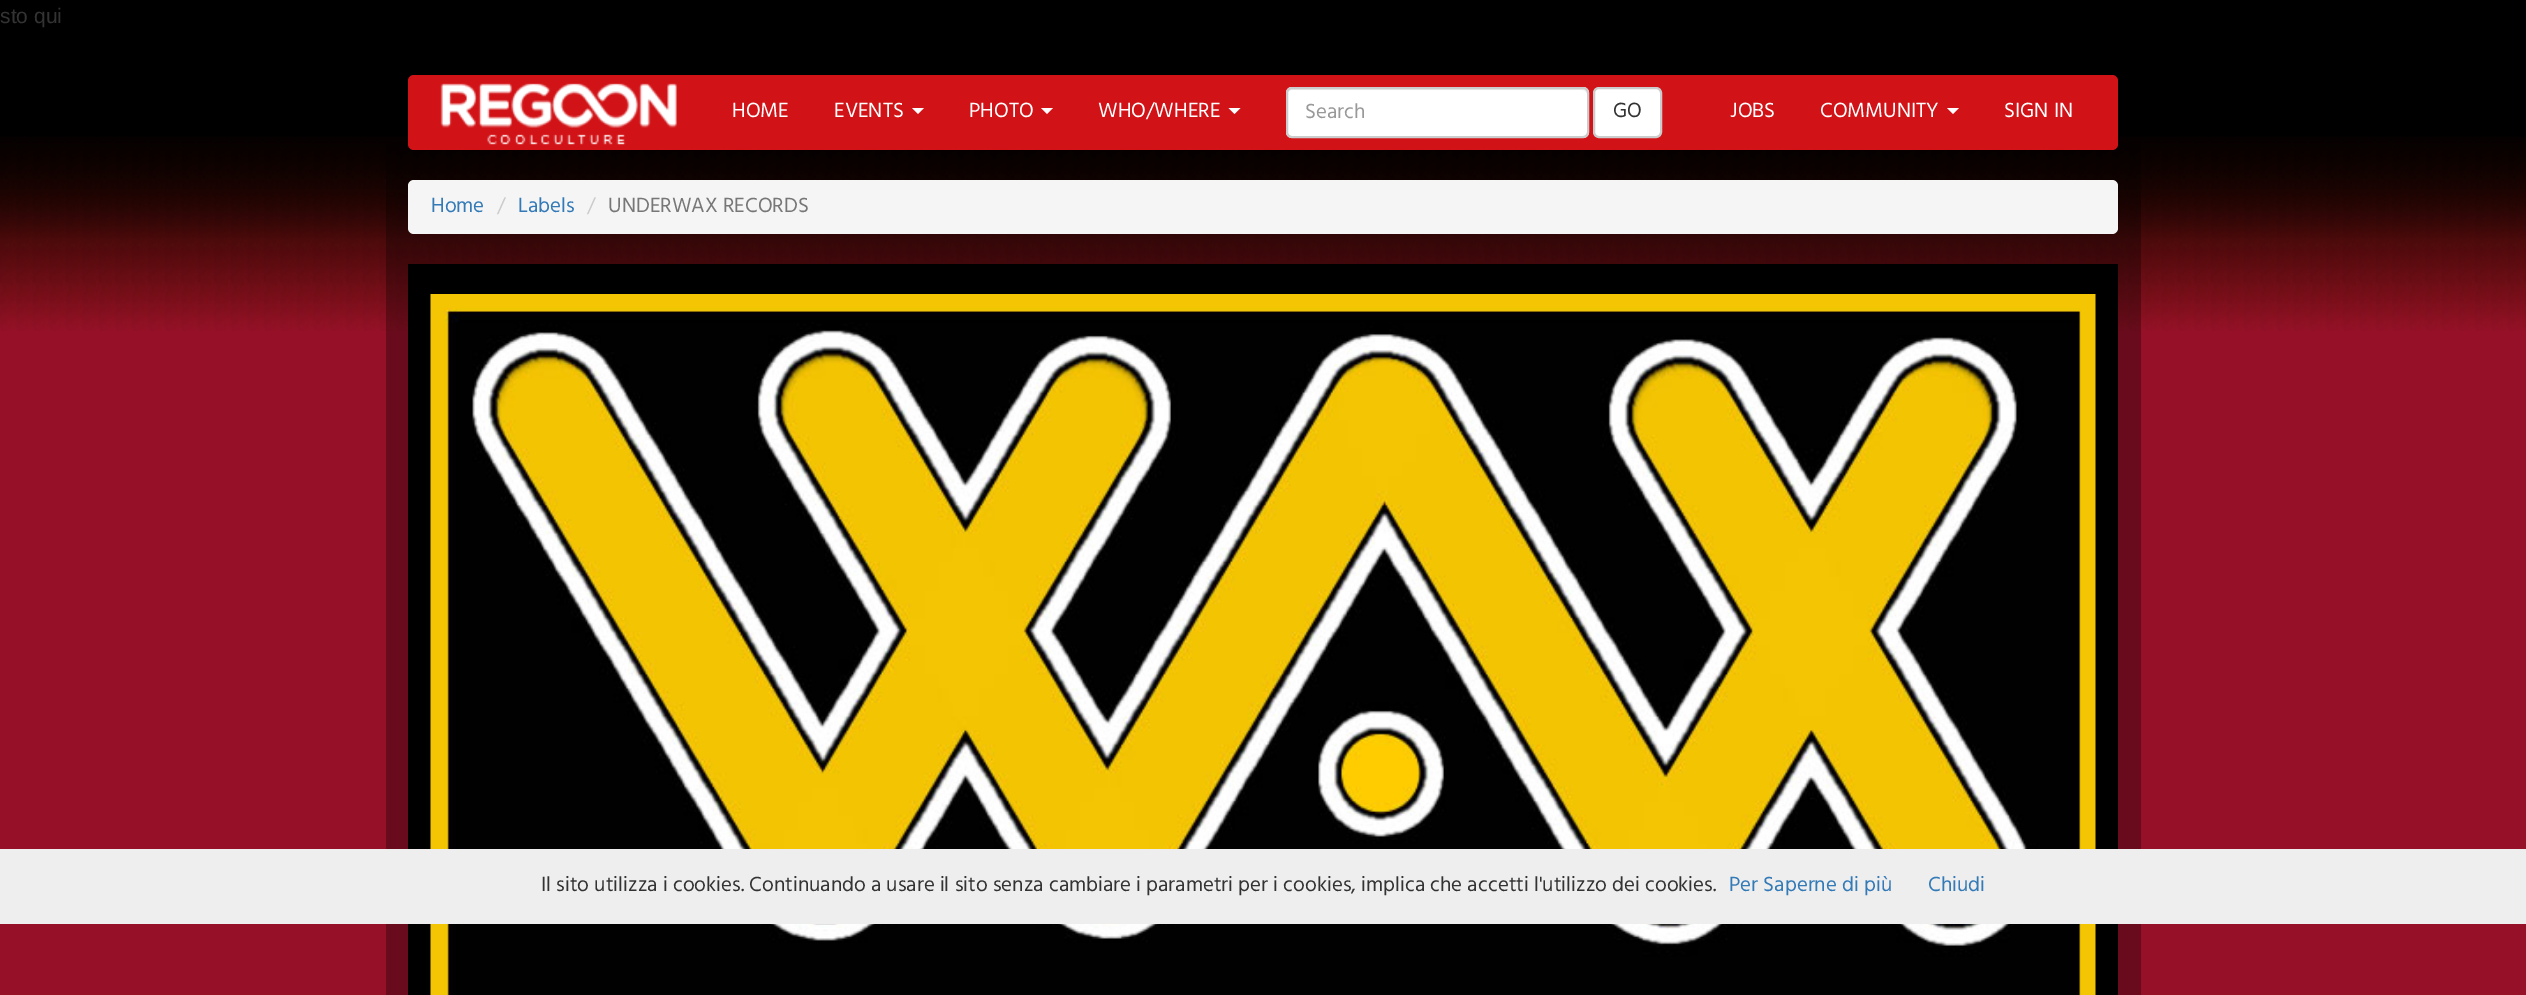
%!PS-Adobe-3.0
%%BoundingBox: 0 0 2526 995
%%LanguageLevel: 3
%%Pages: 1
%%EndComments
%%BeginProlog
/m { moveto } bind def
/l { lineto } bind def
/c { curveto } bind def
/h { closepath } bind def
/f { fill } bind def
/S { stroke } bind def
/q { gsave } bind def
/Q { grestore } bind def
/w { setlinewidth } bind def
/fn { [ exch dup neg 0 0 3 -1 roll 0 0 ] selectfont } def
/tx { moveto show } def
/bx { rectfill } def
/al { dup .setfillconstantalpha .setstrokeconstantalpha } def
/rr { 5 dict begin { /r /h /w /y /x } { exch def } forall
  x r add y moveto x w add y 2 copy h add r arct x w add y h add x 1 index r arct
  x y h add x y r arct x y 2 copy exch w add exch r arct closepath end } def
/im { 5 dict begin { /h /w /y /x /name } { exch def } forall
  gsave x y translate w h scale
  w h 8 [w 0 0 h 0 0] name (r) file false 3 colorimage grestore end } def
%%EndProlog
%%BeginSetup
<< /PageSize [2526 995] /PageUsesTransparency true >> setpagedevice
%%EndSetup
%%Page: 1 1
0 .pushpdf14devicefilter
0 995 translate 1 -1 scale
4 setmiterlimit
0.588 0.063 0.157 setrgbcolor
0 0 2526 995 bx
(image0.raw) 0 0 2526 331 im
/LiberationSans-Regular 21 fn
0.2 setgray
(sto qui) 0 23 tx
0.3 al
0 setgray
386 143 1755 852 bx
1 al
0.82 0.071 0.086 setrgbcolor
408 75 1710 75 6 rr f
(image1.raw) 440 83 237 62 im
/Hind-Regular 21 fn
1 setgray
(HOME) 732 117 tx
(EVENTS) 834 117 tx
912 108 m 924 108 l 918 114 l h f
(PHOTO) 969 117 tx
1041 108 m 1053 108 l 1047 114 l h f
(WHO/WHERE) 1098 117 tx
1228.5 108 m 1240.5 108 l 1234.5 114 l h f
1286 87 303 51 6 rr f
0.925 setgray
1292 90 m 1582 90 l 1585 90 1587 92 1587 94 c 1587 91 1585 89 1582 89 c 1292 89 l 1289 89 1287 91 1287 94 c 1287 92 1289 90 1292 90 c h f
0.8 setgray
2 w
1287 88 301 49 5 rr S
0.6 setgray
(Search) 1305 118 tx
1 setgray
1594 88 67 49 5 rr q f Q
0.8 setgray
S
0.2 setgray
(GO) 1613 117 tx
1 setgray
(JOBS) 1730 117 tx
(COMMUNITY) 1820 117 tx
1947 108 m 1959 108 l 1953 114 l h f
(SIGN IN) 2004 117 tx
0.961 setgray
408 180 1710 54 6 rr f
0.2 0.478 0.718 setrgbcolor
(Home) 431 212 tx
0.8 setgray
(/) 497 212 tx
0.2 0.478 0.718 setrgbcolor
(Labels) 518 212 tx
0.8 setgray
(/) 587 212 tx
0.467 setgray
(UNDERWAX RECORDS) 608 212 tx
0 setgray
408 264 1710 731 bx
(image2.raw) 430 294 1666 701 im
0.933 setgray
0 849 2526 75 bx
0.2 setgray
(Il sito utilizza i cookies. Continuando a usare il sito senza cambiare i parametri per i cookies, implica che accetti l'utilizzo dei cookies.) 541 891 tx
0.2 0.478 0.718 setrgbcolor
(Per Saperne di più) 1729 891 tx
(Chiudi) 1928 891 tx
.poppdf14devicefilter showpage
%%EOF
